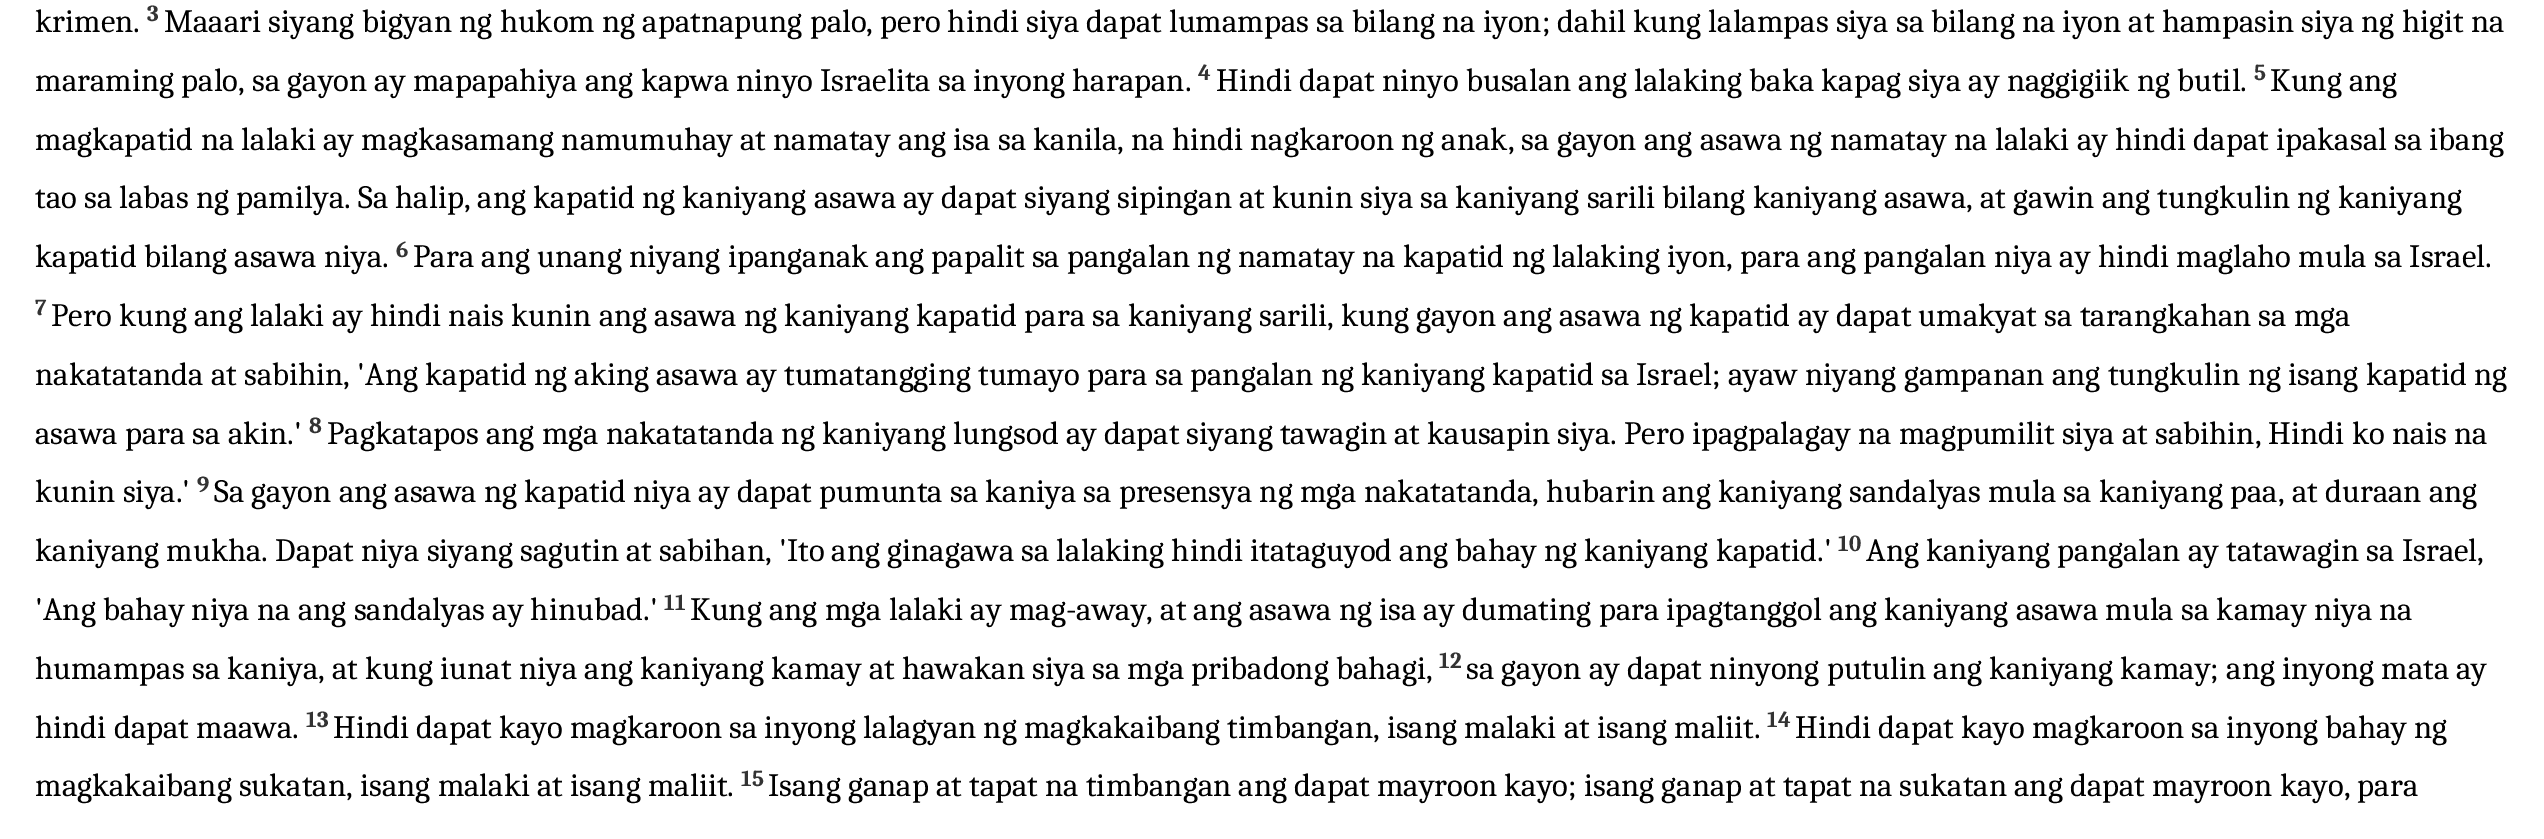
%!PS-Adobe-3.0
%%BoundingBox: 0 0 2544 839
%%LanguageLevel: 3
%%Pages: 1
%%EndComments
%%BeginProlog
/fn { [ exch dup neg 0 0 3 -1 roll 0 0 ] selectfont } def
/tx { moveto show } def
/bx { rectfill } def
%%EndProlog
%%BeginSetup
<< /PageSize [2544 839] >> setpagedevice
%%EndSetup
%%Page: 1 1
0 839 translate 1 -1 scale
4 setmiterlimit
1 setgray
0 0 2544 839 bx
/Caladea-Regular 32.67 fn
0 setgray
(krimen.) 35 32 tx
/Caladea-Bold 23 fn
0.2 setgray
(3) 147 21 tx
/Caladea-Regular 32.67 fn
0 setgray
(Maaari siyang bigyan ng hukom ng apatnapung palo, pero hindi siya dapat lumampas sa bilang na iyon; dahil kung lalampas siya sa bilang na iyon at hampasin siya ng higit na) 164 32 tx
(maraming palo, sa gayon ay mapapahiya ang kapwa ninyo Israelita sa inyong harapan.) 35 91 tx
/Caladea-Bold 23 fn
0.2 setgray
(4) 1198 80 tx
/Caladea-Regular 32.67 fn
0 setgray
(Hindi dapat ninyo busalan ang lalaking baka kapag siya ay naggigiik ng butil.) 1216 91 tx
/Caladea-Bold 23 fn
0.2 setgray
(5) 2254 80 tx
/Caladea-Regular 32.67 fn
0 setgray
(Kung ang) 2270 91 tx
(magkapatid na lalaki ay magkasamang namumuhay at namatay ang isa sa kanila, na hindi nagkaroon ng anak, sa gayon ang asawa ng namatay na lalaki ay hindi dapat ipakasal sa ibang) 35 150 tx
(tao sa labas ng pamilya. Sa halip, ang kapatid ng kaniyang asawa ay dapat siyang sipingan at kunin siya sa kaniyang sarili bilang kaniyang asawa, at gawin ang tungkulin ng kaniyang) 35 208 tx
(kapatid bilang asawa niya.) 35 267 tx
/Caladea-Bold 23 fn
0.2 setgray
(6) 396 257 tx
/Caladea-Regular 32.67 fn
0 setgray
(Para ang unang niyang ipanganak ang papalit sa pangalan ng namatay na kapatid ng lalaking iyon, para ang pangalan niya ay hindi maglaho mula sa Israel.) 413 267 tx
/Caladea-Bold 23 fn
0.2 setgray
(7) 35 315 tx
/Caladea-Regular 32.67 fn
0 setgray
(Pero kung ang lalaki ay hindi nais kunin ang asawa ng kaniyang kapatid para sa kaniyang sarili, kung gayon ang asawa ng kapatid ay dapat umakyat sa tarangkahan sa mga) 51 326 tx
(nakatatanda at sabihin, 'Ang kapatid ng aking asawa ay tumatangging tumayo para sa pangalan ng kaniyang kapatid sa Israel; ayaw niyang gampanan ang tungkulin ng isang kapatid ng) 35 385 tx
(asawa para sa akin.') 35 444 tx
/Caladea-Bold 23 fn
0.2 setgray
(8) 309 433 tx
/Caladea-Regular 32.67 fn
0 setgray
(Pagkatapos ang mga nakatatanda ng kaniyang lungsod ay dapat siyang tawagin at kausapin siya. Pero ipagpalagay na magpumilit siya at sabihin, Hindi ko nais na) 327 444 tx
(kunin siya.') 35 502 tx
/Caladea-Bold 23 fn
0.2 setgray
(9) 197 492 tx
/Caladea-Regular 32.67 fn
0 setgray
(Sa gayon ang asawa ng kapatid niya ay dapat pumunta sa kaniya sa presensya ng mga nakatatanda, hubarin ang kaniyang sandalyas mula sa kaniyang paa, at duraan ang) 214 502 tx
(kaniyang mukha. Dapat niya siyang sagutin at sabihan, 'Ito ang ginagawa sa lalaking hindi itataguyod ang bahay ng kaniyang kapatid.') 35 561 tx
/Caladea-Bold 23 fn
0.2 setgray
(10) 1838 551 tx
/Caladea-Regular 32.67 fn
0 setgray
(Ang kaniyang pangalan ay tatawagin sa Israel,) 1866 561 tx
('Ang bahay niya na ang sandalyas ay hinubad.') 35 620 tx
/Caladea-Bold 23 fn
0.2 setgray
(11) 664 610 tx
/Caladea-Regular 32.67 fn
0 setgray
(Kung ang mga lalaki ay mag-away, at ang asawa ng isa ay dumating para ipagtanggol ang kaniyang asawa mula sa kamay niya na) 690 620 tx
(humampas sa kaniya, at kung iunat niya ang kaniyang kamay at hawakan siya sa mga pribadong bahagi,) 35 679 tx
/Caladea-Bold 23 fn
0.2 setgray
(12) 1439 668 tx
/Caladea-Regular 32.67 fn
0 setgray
(sa gayon ay dapat ninyong putulin ang kaniyang kamay; ang inyong mata ay) 1466 679 tx
(hindi dapat maawa.) 35 738 tx
/Caladea-Bold 23 fn
0.2 setgray
(13) 306 727 tx
/Caladea-Regular 32.67 fn
0 setgray
(Hindi dapat kayo magkaroon sa inyong lalagyan ng magkakaibang timbangan, isang malaki at isang maliit.) 333 738 tx
/Caladea-Bold 23 fn
0.2 setgray
(14) 1767 727 tx
/Caladea-Regular 32.67 fn
0 setgray
(Hindi dapat kayo magkaroon sa inyong bahay ng) 1795 738 tx
(magkakaibang sukatan, isang malaki at isang maliit.) 35 796 tx
/Caladea-Bold 23 fn
0.2 setgray
(15) 741 786 tx
/Caladea-Regular 32.67 fn
0 setgray
(Isang ganap at tapat na timbangan ang dapat mayroon kayo; isang ganap at tapat na sukatan ang dapat mayroon kayo, para) 768 796 tx
showpage
%%EOF
